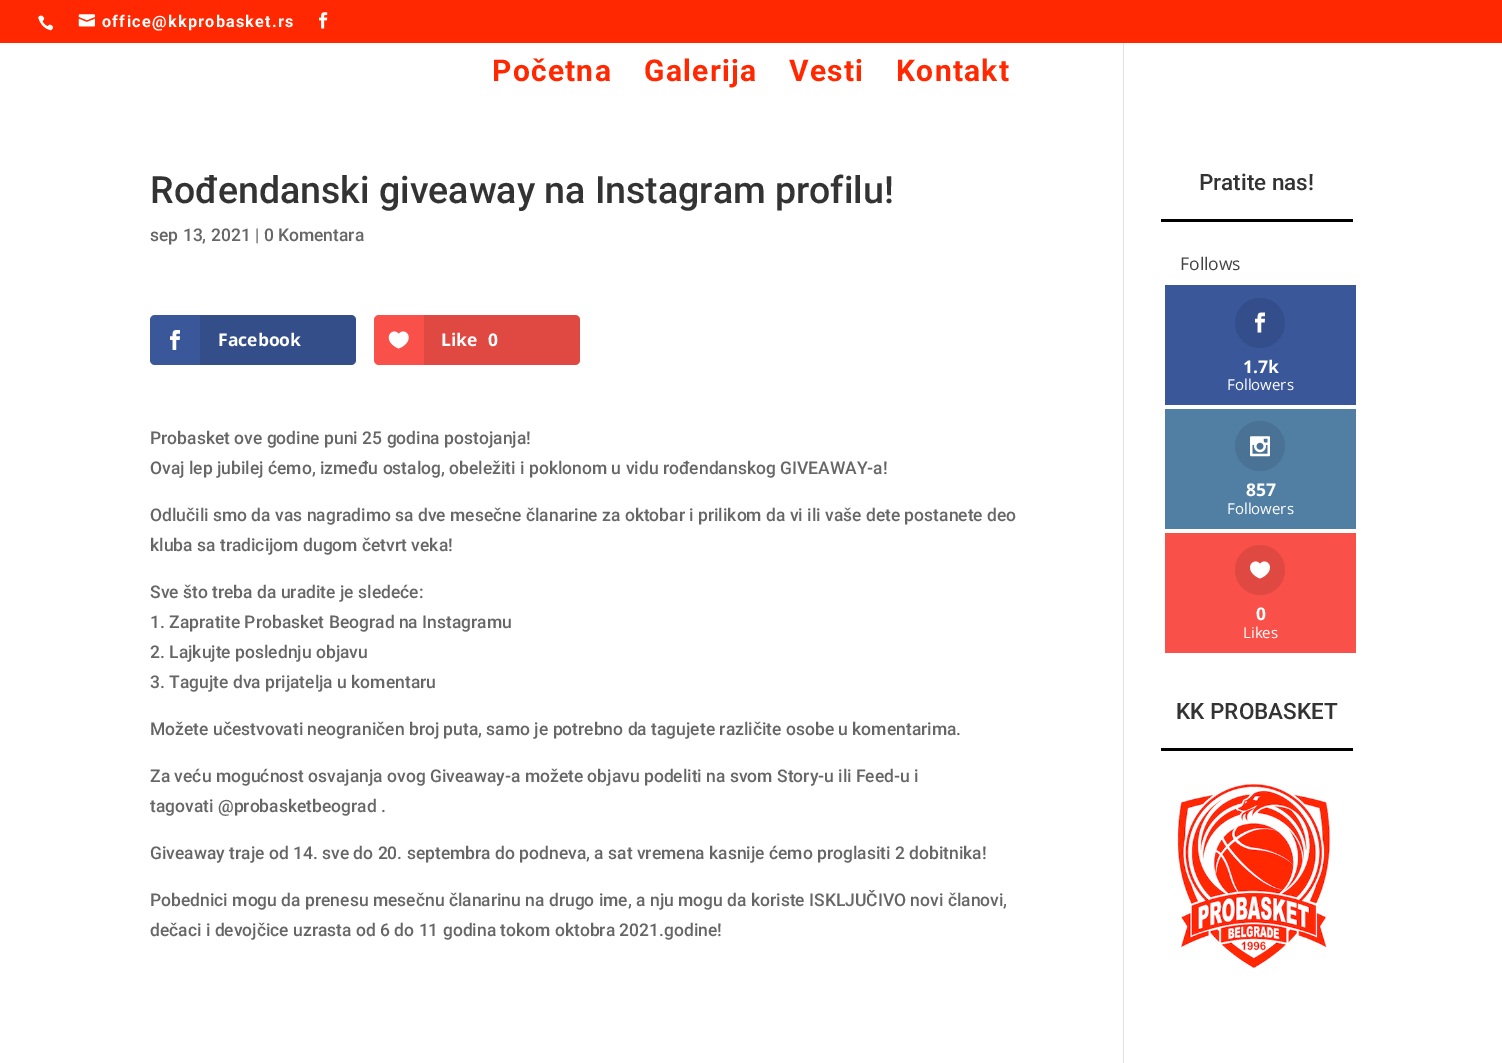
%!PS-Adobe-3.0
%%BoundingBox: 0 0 1502 1063
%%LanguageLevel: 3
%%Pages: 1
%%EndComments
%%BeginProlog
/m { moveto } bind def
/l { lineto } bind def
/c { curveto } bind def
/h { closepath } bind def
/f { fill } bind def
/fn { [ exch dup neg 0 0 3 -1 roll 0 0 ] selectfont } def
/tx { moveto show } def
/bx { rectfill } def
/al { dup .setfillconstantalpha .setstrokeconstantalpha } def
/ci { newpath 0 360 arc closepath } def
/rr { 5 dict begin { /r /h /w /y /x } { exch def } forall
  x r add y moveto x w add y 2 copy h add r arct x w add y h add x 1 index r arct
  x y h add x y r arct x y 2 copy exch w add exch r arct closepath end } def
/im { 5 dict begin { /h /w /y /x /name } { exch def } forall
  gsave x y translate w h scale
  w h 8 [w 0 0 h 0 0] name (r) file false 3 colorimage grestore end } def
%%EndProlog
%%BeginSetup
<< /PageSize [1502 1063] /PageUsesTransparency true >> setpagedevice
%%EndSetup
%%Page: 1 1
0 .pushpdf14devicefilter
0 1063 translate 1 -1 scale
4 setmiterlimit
1 setgray
0 0 1502 1063 bx
1 0.157 0 setrgbcolor
0 0 1502 43 bx
(image0.raw) 38 15 15 16 im
(image1.raw) 78 14 17 13 im
/Roboto-Bold 16.25 fn
1 setgray
102 27 m 1.25 0 (office@kkprobasket.rs) ashow
(image2.raw) 319 12 9 17 im
/Roboto-Bold 30 fn
1 0.157 0 setrgbcolor
492 81 m 1.25 0 (Početna) ashow
644 81 m 1.25 0 (Galerija) ashow
789 81 m 1.25 0 (Vesti) ashow
896 81 m 1.25 0 (Kontakt) ashow
0.886 setgray
1123 43 1 1020 bx
/Roboto-Medium 37.5 fn
0.2 setgray
(Rođendanski giveaway na Instagram profilu!) 150 203 tx
/Roboto-Medium 17.5 fn
0.4 setgray
(sep 13, 2021 | 0 Komentara) 150 241 tx
0.227 0.341 0.604 setrgbcolor
150 315 206 50 5 rr f
(image3.raw) 170 330 10 20 im
0.1 al
0 setgray
200 315 m 351 315 l 354 315 356 317 356 320 c 356 360 l 356 363 354 365 351 365 c 200 365 l h f
/OpenSans-Bold 17.5 fn
1 al
1 setgray
(Facebook) 218 346 tx
0.976 0.318 0.286 setrgbcolor
374 315 206 50 5 rr f
(image4.raw) 388 331 21 18 im
0.1 al
0 setgray
424 315 m 575 315 l 578 315 580 317 580 320 c 580 360 l 580 363 578 365 575 365 c 424 365 l h f
1 al
1 setgray
(Like) 441 346 tx
(0) 488 346 tx
/Roboto-Medium 17.5 fn
0.4 setgray
(Probasket ove godine puni 25 godina postojanja!) 150 444 tx
(Ovaj lep jubilej ćemo, između ostalog, obeležiti i poklonom u vidu rođendanskog GIVEAWAY-a!) 150 474 tx
(Odlučili smo da vas nagradimo sa dve mesečne članarine za oktobar i prilikom da vi ili vaše dete postanete deo) 150 521 tx
(kluba sa tradicijom dugom četvrt veka!) 150 551 tx
(Sve što treba da uradite je sledeće:) 150 598 tx
(1. Zapratite Probasket Beograd na Instagramu) 150 628 tx
(2. Lajkujte poslednju objavu) 150 658 tx
(3. Tagujte dva prijatelja u komentaru) 150 688 tx
(Možete učestvovati neograničen broj puta, samo je potrebno da tagujete različite osobe u komentarima.) 150 735 tx
(Za veću mogućnost osvajanja ovog Giveaway-a možete objavu podeliti na svom Story-u ili Feed-u i) 150 782 tx
(tagovati @probasketbeograd .) 150 812 tx
(Giveaway traje od 14. sve do 20. septembra do podneva, a sat vremena kasnije ćemo proglasiti 2 dobitnika!) 150 859 tx
(Pobednici mogu da prenesu mesečnu članarinu na drugo ime, a nju mogu da koriste ISKLJUČIVO novi članovi,) 150 906 tx
(dečaci i devojčice uzrasta od 6 do 11 godina tokom oktobra 2021.godine!) 150 936 tx
0 setgray
1161 219 192 3 bx
/Roboto-Medium 22.5 fn
0.2 setgray
(Pratite nas!) 1199 190 tx
/OpenSans-Regular 17.5 fn
0.267 setgray
(Follows) 1180 270 tx
0.227 0.341 0.604 setrgbcolor
1165 285 191 120 bx
0.204 0.306 0.545 setrgbcolor
1260 323 25 ci f
(image5.raw) 1255 312 10 21 im
/OpenSans-Bold 17.5 fn
1 setgray
(1.7k) 1243 373 tx
/OpenSans-Regular 15 fn
(Followers) 1227 390 tx
0.318 0.498 0.643 setrgbcolor
1165 409 191 120 bx
0.286 0.447 0.58 setrgbcolor
1260 446 25 ci f
(image6.raw) 1250 436 20 21 im
/OpenSans-Bold 17.5 fn
1 setgray
(857) 1246 496 tx
/OpenSans-Regular 15 fn
(Followers) 1227 514 tx
0.976 0.318 0.286 setrgbcolor
1165 533 191 120 bx
0.878 0.286 0.259 setrgbcolor
1260 570 25 ci f
(image7.raw) 1250 561 20 18 im
/OpenSans-Bold 17.5 fn
1 setgray
(0) 1256 620 tx
/OpenSans-Regular 15 fn
(Likes) 1243 638 tx
0 setgray
1161 748 192 3 bx
/Roboto-Medium 22.5 fn
0.2 setgray
(KK PROBASKET) 1176 719 tx
(image8.raw) 1177 784 153 184 im
.poppdf14devicefilter showpage
%%EOF
